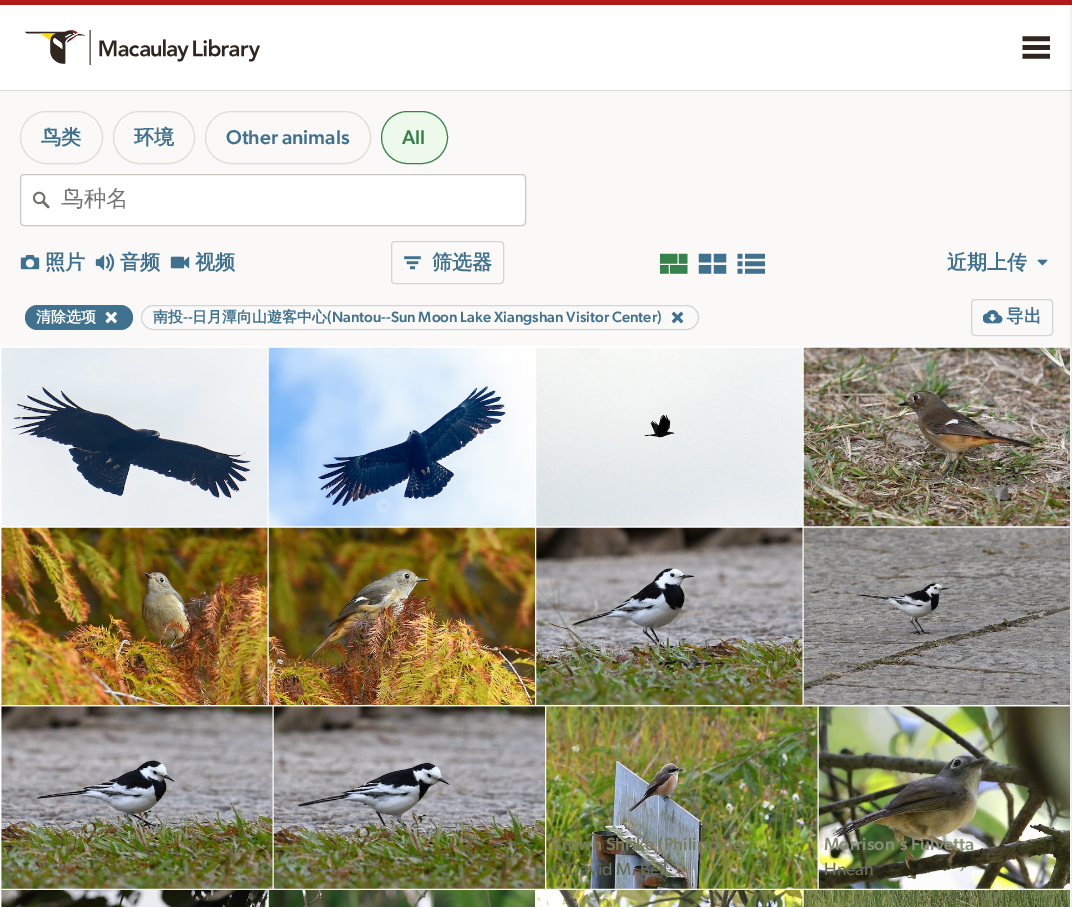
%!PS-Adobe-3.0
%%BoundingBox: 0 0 1072 907
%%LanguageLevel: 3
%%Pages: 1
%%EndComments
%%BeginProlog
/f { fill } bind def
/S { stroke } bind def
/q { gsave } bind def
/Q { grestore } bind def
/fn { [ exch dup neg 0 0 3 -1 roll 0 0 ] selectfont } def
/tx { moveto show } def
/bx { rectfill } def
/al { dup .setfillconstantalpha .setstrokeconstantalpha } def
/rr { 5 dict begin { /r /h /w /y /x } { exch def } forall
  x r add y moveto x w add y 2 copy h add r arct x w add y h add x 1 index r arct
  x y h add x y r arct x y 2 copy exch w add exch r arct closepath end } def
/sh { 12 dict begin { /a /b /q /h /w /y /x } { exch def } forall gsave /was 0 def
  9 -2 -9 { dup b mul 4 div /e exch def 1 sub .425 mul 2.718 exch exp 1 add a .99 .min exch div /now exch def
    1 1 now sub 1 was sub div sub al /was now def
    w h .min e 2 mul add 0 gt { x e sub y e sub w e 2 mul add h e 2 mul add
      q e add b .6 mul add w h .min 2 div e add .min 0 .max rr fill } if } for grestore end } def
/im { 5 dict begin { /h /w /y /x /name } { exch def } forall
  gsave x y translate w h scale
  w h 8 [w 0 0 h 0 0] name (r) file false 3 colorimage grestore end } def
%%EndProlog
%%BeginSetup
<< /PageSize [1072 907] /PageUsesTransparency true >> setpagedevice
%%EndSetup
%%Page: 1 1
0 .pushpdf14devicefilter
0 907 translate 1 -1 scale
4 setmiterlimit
1 setgray
0 0 1072 907 bx
0.702 0.106 0.106 setrgbcolor
0 0 1072 5 bx
0.859 0.859 0.851 setrgbcolor
0 90 1072 1 bx
(image0.raw) 25 30 235 35 im
(image1.raw) 1022 36 28 23 im
0.98 0.976 0.969 setrgbcolor
0 91 1072 255 bx
(image16.raw) 803 347 267 180 im
(image21.raw) 803 527 267 178 im
(image25.raw) 818 706 252 183 im
(image29.raw) 803 890 267 17 im
0 setgray
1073 3 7 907 0 2.5 0.2 sh
0.867 0.863 0.835 setrgbcolor
20.5 111.5 82 52 26 rr S
/WenQuanYiZenHei-Bold 20 fn
0.251 0.443 0.561 setrgbcolor
(鸟类) 41 144 tx
0.867 0.863 0.835 setrgbcolor
113.5 111.5 81 52 26 rr S
0.251 0.443 0.561 setrgbcolor
(环境) 134 144 tx
0.867 0.863 0.835 setrgbcolor
205.5 111.5 165 52 26 rr S
/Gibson-Medium 20 fn
0.251 0.443 0.561 setrgbcolor
(Other animals) 226 144 tx
0.925 0.976 0.922 setrgbcolor
381.5 111.5 66 52 26 rr q f Q
0.212 0.51 0.294 setrgbcolor
S
(All) 402 144 tx
1 setgray
20.5 174.5 505 51 3.5 rr q f Q
0.784 0.78 0.753 setrgbcolor
S
(image2.raw) 32 191 18 18 im
/WenQuanYiZenHei-Medium 22.5 fn
0.459 setgray
(鸟种名) 61 206 tx
(image3.raw) 20 255 20 15 im
/WenQuanYiZenHei-Bold 20 fn
0.251 0.443 0.561 setrgbcolor
(照片) 45 269 tx
(image4.raw) 95 253 20 19 im
(音频) 120 269 tx
(image5.raw) 170 256 20 13 im
(视频) 195 269 tx
0.8 0.843 0.867 setrgbcolor
391.5 241.5 112 42 3.5 rr S
(image6.raw) 404 256 17 14 im
0.251 0.443 0.561 setrgbcolor
(筛选器) 432 269 tx
(image7.raw) 660 253 28 21 im
(image8.raw) 698 253 29 21 im
(image9.raw) 737 253 28 21 im
(近期上传) 947 269 tx
(image10.raw) 1037 259 11 7 im
25 305 108 25 12.5 rr f
/WenQuanYiZenHei-Bold 15 fn
1 setgray
(清除选项) 36 322 tx
(image11.raw) 105 311 12 13 im
0.8 0.843 0.867 setrgbcolor
141.5 305.5 557 24 12 rr S
0.251 0.443 0.561 setrgbcolor
(南投) 153 322 tx
/Gibson-Medium 15 fn
(--) 183 322 tx
/WenQuanYiZenHei-Bold 15 fn
(日月潭向山遊客中心) 192 322 tx
/Gibson-Medium 15 fn
(\(Nantou--Sun Moon Lake Xiangshan Visitor Center\)) 327 322 tx
(image12.raw) 671 311 13 13 im
0.8 0.843 0.867 setrgbcolor
971.5 299.5 81 36 3.5 rr S
(image13.raw) 983 310 20 14 im
/WenQuanYiZenHei-Bold 17.6 fn
0.251 0.443 0.561 setrgbcolor
(导出) 1006 322 tx
(image14.raw) 1 347 267 180 im
(image15.raw) 536 347 267 180 im
/Gibson-Regular 17.6 fn
0.455 0.424 0.365 setrgbcolor
(© David M.) 952 487 tx
(image17.raw) 268 347 267 180 im
0.859 0.922 0.984 setrgbcolor
(©) 376 512 tx
(image18.raw) 1 527 267 178 im
/Gibson-Medium 17.6 fn
0.706 0.514 0.188 setrgbcolor
(t) 130 667 tx
/Gibson-Regular 17.6 fn
0.561 0.38 0.137 setrgbcolor
(© David M.) 149 667 tx
(image19.raw) 268 527 267 178 im
/Gibson-Medium 17.6 fn
0.498 0.345 0.153 setrgbcolor
(Daurian Redstart) 274 667 tx
/Gibson-Regular 17.6 fn
0.749 0.6 0.212 setrgbcolor
(.) 497 667 tx
0.529 0.349 0.192 setrgbcolor
(Bell) 274 692 tx
(image20.raw) 536 527 267 178 im
(image22.raw) 1 706 272 183 im
(image23.raw) 273 706 272 183 im
(image24.raw) 546 706 272 183 im
/Gibson-Medium 17.6 fn
0.471 0.494 0.365 setrgbcolor
(Brown Shrike \(Philippine\)) 551 850 tx
/Gibson-Regular 17.6 fn
0.388 0.424 0.333 setrgbcolor
(© David M. Bell) 551 875 tx
/Gibson-Medium 17.6 fn
0.533 0.561 0.467 setrgbcolor
(Morrison's Fulvetta) 824 850 tx
/Gibson-Regular 17.6 fn
0.427 0.439 0.333 setrgbcolor
(Hneah) 824 875 tx
(image26.raw) 1 890 267 17 im
(image27.raw) 268 890 267 17 im
(image28.raw) 536 890 267 17 im
.poppdf14devicefilter showpage
%%EOF
